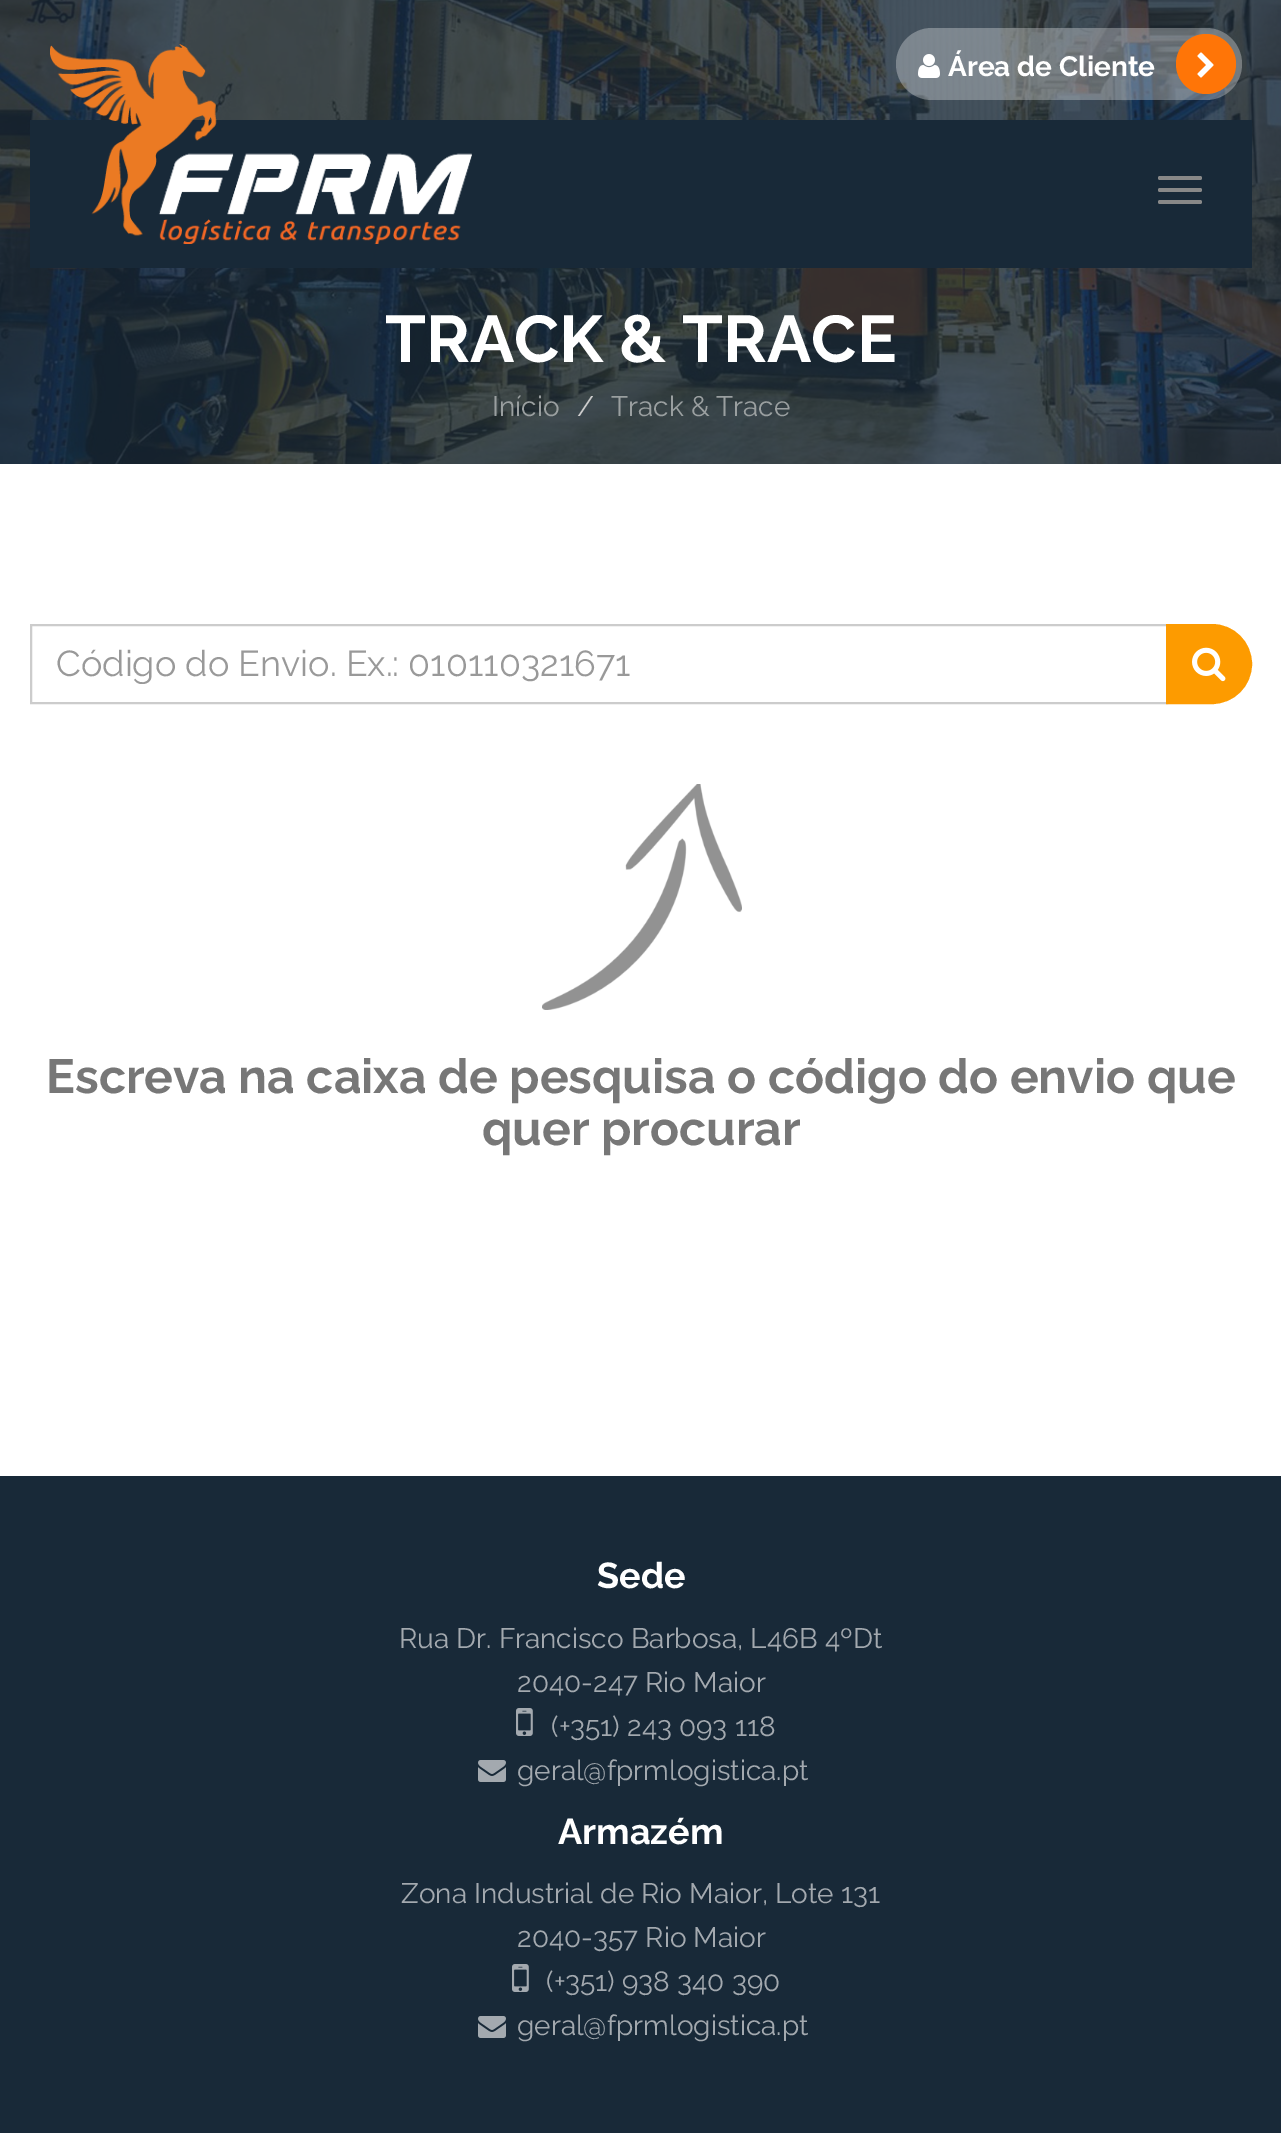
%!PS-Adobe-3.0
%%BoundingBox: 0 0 1281 2133
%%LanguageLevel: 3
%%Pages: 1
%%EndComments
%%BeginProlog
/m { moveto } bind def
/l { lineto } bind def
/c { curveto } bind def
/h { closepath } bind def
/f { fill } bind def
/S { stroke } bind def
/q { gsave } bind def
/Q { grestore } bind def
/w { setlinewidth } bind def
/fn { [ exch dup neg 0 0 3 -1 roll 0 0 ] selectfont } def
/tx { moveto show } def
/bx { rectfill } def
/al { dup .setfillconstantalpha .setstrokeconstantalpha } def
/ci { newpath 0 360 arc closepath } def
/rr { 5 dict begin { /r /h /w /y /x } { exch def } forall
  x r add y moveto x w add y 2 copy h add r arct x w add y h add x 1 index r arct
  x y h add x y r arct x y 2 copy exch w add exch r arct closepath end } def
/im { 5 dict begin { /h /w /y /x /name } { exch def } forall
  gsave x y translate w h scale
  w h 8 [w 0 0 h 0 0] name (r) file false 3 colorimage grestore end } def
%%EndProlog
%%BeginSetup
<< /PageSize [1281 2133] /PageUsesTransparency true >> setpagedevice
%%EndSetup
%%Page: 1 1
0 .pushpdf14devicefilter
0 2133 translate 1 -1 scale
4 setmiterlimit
1 setgray
0 0 1281 2133 bx
(image3.raw) 0 0 1281 464 im
0.094 0.161 0.22 setrgbcolor
30 120 1222 148 bx
(image0.raw) 50 44 422 200 im
0.533 setgray
1158 176 44 4 2 rr f
1158 188 44 4 2 rr f
1158 200 44 4 2 rr f
0.3 al
1 setgray
896 28 346 72 36 rr f
1 al
(image1.raw) 918 54 22 24 im
/Raleway-Bold 28 fn
(Área de Cliente) 948 76 tx
1 0.459 0.027 setrgbcolor
1206 64 30 ci f
(image2.raw) 1197 52 17 26 im
/Raleway-Bold 66 fn
1 setgray
(TRACK & TRACE) 385 362 tx
/Raleway-Regular 28 fn
0.604 0.624 0.627 setrgbcolor
(Início) 492 416 tx
0.8 setgray
(/) 577 416 tx
0.604 0.624 0.627 setrgbcolor
(Track & Trace) 611 416 tx
0.8 setgray
2 w
31 625 1136 78 rectstroke
/Raleway-Regular 36 fn
0.6 setgray
(Código do Envio. Ex.: 010110321671) 56 676 tx
0.992 0.608 0 setrgbcolor
1167 625 m 1212 625 l 1233.5 625 1251 642.5 1251 664 c 1251 685.5 1233.5 703 1212 703 c 1167 703 l h q f Q
S
(image4.raw) 1192 647 34 35 im
(image5.raw) 542 784 200 226 im
/Raleway-Bold 48 fn
0.467 setgray
(Escreva na caixa de pesquisa o código do envio que) 46 1093 tx
(quer procurar) 482 1145 tx
0.094 0.161 0.22 setrgbcolor
0 1476 1281 657 bx
/Raleway-Bold 36 fn
1 setgray
(Sede) 597 1588 tx
/Raleway-Regular 28 fn
0.639 0.663 0.686 setrgbcolor
(Rua Dr. Francisco Barbosa, L46B 4ºDt) 399 1648 tx
(2040-247 Rio Maior) 517 1692 tx
(image6.raw) 516 1708 17 28 im
(\(+351\) 243 093 118) 551 1736 tx
(image7.raw) 478 1760 28 22 im
(geral@fprmlogistica.pt) 517 1780 tx
/Raleway-Bold 36 fn
1 setgray
(Armazém) 558 1844 tx
/Raleway-Regular 28 fn
0.639 0.663 0.686 setrgbcolor
(Zona Industrial de Rio Maior, Lote 131) 401 1903 tx
(2040-357 Rio Maior) 517 1947 tx
(image6.raw) 512 1964 17 28 im
(\(+351\) 938 340 390) 546 1991 tx
(image7.raw) 478 2016 28 22 im
(geral@fprmlogistica.pt) 517 2035 tx
.poppdf14devicefilter showpage
%%EOF
